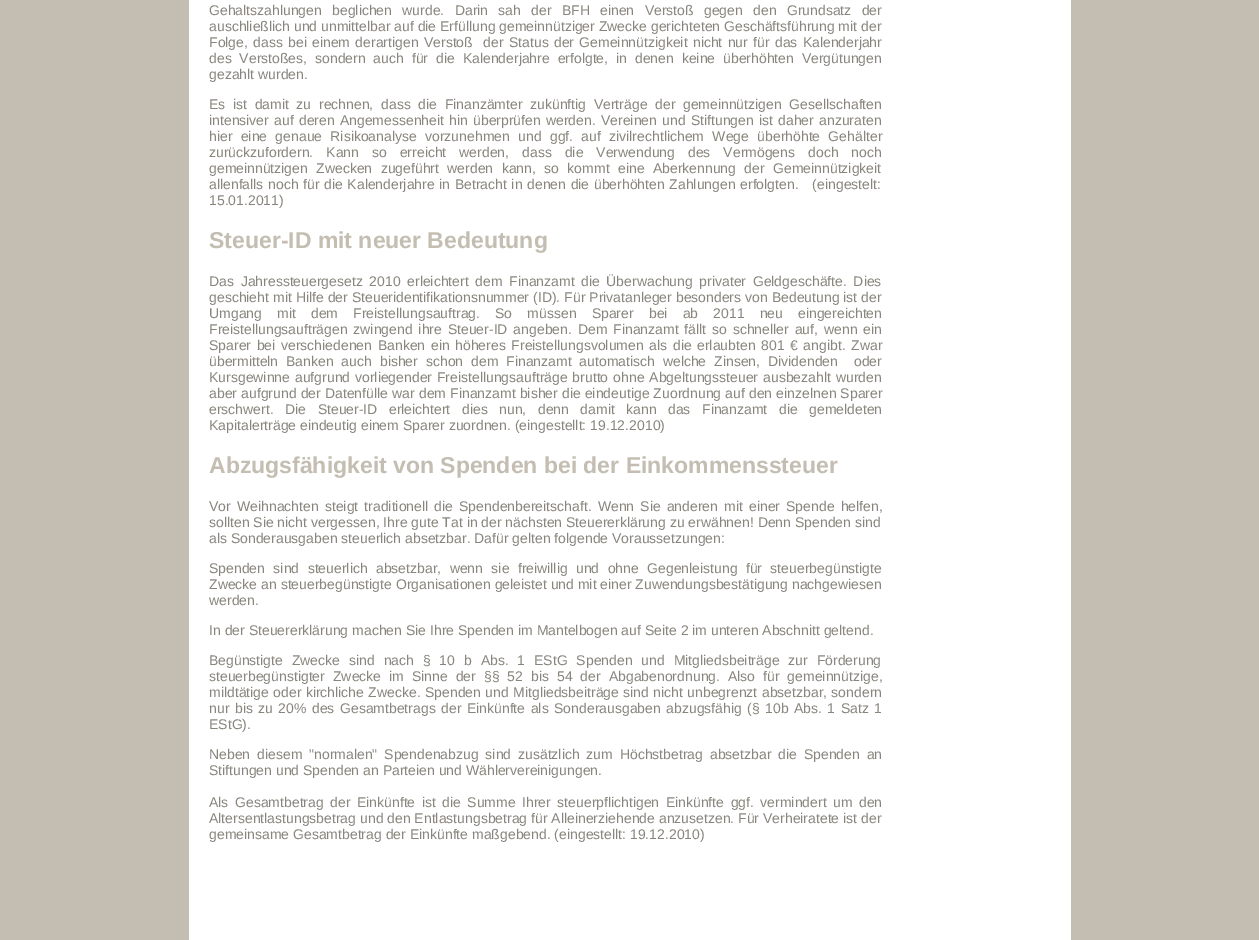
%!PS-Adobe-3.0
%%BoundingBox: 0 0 1259 940
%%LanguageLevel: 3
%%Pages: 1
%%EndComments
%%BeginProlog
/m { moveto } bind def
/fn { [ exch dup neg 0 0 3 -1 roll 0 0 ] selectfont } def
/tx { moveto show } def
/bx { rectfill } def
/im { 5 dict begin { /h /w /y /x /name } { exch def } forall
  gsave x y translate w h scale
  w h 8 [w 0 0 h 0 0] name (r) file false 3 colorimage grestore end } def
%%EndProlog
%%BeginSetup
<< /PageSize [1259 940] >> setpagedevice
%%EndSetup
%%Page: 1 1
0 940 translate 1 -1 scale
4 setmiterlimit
0.769 0.745 0.698 setrgbcolor
0 0 1259 940 bx
(image0.raw) 902 0 169 940 im
1 setgray
189 0 713 940 bx
/LiberationSans-Regular 14 fn
0.537 0.522 0.486 setrgbcolor
209 15 m 6.4 0 32 (Gehaltszahlungen beglichen wurde. Darin sah der BFH einen Verstoß gegen den Grundsatz der) widthshow
(auschließlich und unmittelbar auf die Erfüllung gemeinnütziger Zwecke gerichteten Geschäftsführung mit der) 209 31 tx
209 47 m 1.4 0 32 (Folge, dass bei einem derartigen Verstoß  der Status der Gemeinnützigkeit nicht nur für das Kalenderjahr) widthshow
209 63 m 4 0 32 (des Verstoßes, sondern auch für die Kalenderjahre erfolgte, in denen keine überhöhten Vergütungen) widthshow
(gezahlt wurden.) 209 79 tx
209 109 m 3.75 0 32 (Es ist damit zu rechnen, dass die Finanzämter zukünftig Verträge der gemeinnützigen Gesellschaften) widthshow
209 125 m 1.3 0 32 (intensiver auf deren Angemessenheit hin überprüfen werden. Vereinen und Stiftungen ist daher anzuraten) widthshow
209 141 m 4.4 0 32 (hier eine genaue Risikoanalyse vorzunehmen und ggf. auf zivilrechtlichem Wege überhöhte Gehälter) widthshow
209 157 m 9.1 0 32 (zurückzufordern. Kann so erreicht werden, dass die Verwendung des Vermögens doch noch) widthshow
209 173 m 4.5 0 32 (gemeinnützigen Zwecken zugeführt werden kann, so kommt eine Aberkennung der Gemeinnützigkeit) widthshow
209 189 m 0.75 0 32 (allenfalls noch für die Kalenderjahre in Betracht in denen die überhöhten Zahlungen erfolgten.   \(eingestelt:) widthshow
(15.01.2011\)) 209 205 tx
/LiberationSans-Bold 23 fn
0.769 0.745 0.698 setrgbcolor
(Steuer-ID mit neuer Bedeutung) 209 248 tx
/LiberationSans-Regular 14 fn
0.537 0.522 0.486 setrgbcolor
209 286 m 2.75 0 32 (Das Jahressteuergesetz 2010 erleichtert dem Finanzamt die Überwachung privater Geldgeschäfte. Dies) widthshow
209 302 m 0.1 0 32 (geschieht mit Hilfe der Steueridentifikationsnummer \(ID\). Für Privatanleger besonders von Bedeutung ist der) widthshow
209 318 m 11.25 0 32 (Umgang mit dem Freistellungsauftrag. So müssen Sparer bei ab 2011 neu eingereichten) widthshow
209 334 m 2 0 32 (Freistellungsaufträgen zwingend ihre Steuer-ID angeben. Dem Finanzamt fällt so schneller auf, wenn ein) widthshow
209 350 m 1.75 0 32 (Sparer bei verschiedenen Banken ein höheres Freistellungsvolumen als die erlaubten 801 € angibt. Zwar) widthshow
209 366 m 4 0 32 (übermitteln Banken auch bisher schon dem Finanzamt automatisch welche Zinsen, Dividenden  oder) widthshow
209 382 m 1 0 32 (Kursgewinne aufgrund vorliegender Freistellungsaufträge brutto ohne Abgeltungssteuer ausbezahlt wurden) widthshow
209 398 m 0.25 0 32 (aber aufgrund der Datenfülle war dem Finanzamt bisher die eindeutige Zuordnung auf den einzelnen Sparer) widthshow
209 414 m 7.6 0 32 (erschwert. Die Steuer-ID erleichtert dies nun, denn damit kann das Finanzamt die gemeldeten) widthshow
(Kapitalerträge eindeutig einem Sparer zuordnen. \(eingestellt: 19.12.2010\)) 209 430 tx
/LiberationSans-Bold 23 fn
0.769 0.745 0.698 setrgbcolor
(Abzugsfähigkeit von Spenden bei der Einkommenssteuer) 209 473 tx
/LiberationSans-Regular 14 fn
0.537 0.522 0.486 setrgbcolor
209 511 m 2.25 0 32 (Vor Weihnachten steigt traditionell die Spendenbereitschaft. Wenn Sie anderen mit einer Spende helfen,) widthshow
(sollten Sie nicht vergessen, Ihre gute Tat in der nächsten Steuererklärung zu erwähnen! Denn Spenden sind) 209 527 tx
(als Sonderausgaben steuerlich absetzbar. Dafür gelten folgende Voraussetzungen:) 209 543 tx
209 573 m 4.5 0 32 (Spenden sind steuerlich absetzbar, wenn sie freiwillig und ohne Gegenleistung für steuerbegünstigte) widthshow
(Zwecke an steuerbegünstigte Organisationen geleistet und mit einer Zuwendungsbestätigung nachgewiesen) 209 589 tx
(werden.) 209 605 tx
(In der Steuererklärung machen Sie Ihre Spenden im Mantelbogen auf Seite 2 im unteren Abschnitt geltend.) 209 635 tx
209 665 m 5 0 32 (Begünstigte Zwecke sind nach § 10 b Abs. 1 EStG Spenden und Mitgliedsbeiträge zur Förderung) widthshow
209 681 m 4.1 0 32 (steuerbegünstigter Zwecke im Sinne der §§ 52 bis 54 der Abgabenordnung. Also für gemeinnützige,) widthshow
209 697 m 0.5 0 32 (mildtätige oder kirchliche Zwecke. Spenden und Mitgliedsbeiträge sind nicht unbegrenzt absetzbar, sondern) widthshow
209 713 m 1.6 0 32 (nur bis zu 20% des Gesamtbetrags der Einkünfte als Sonderausgaben abzugsfähig \(§ 10b Abs. 1 Satz 1) widthshow
(EStG\).) 209 729 tx
209 759 m 3 0 32 (Neben diesem "normalen" Spendenabzug sind zusätzlich zum Höchstbetrag absetzbar die Spenden an) widthshow
(Stiftungen und Spenden an Parteien und Wählervereinigungen.) 209 775 tx
209 807 m 2.6 0 32 (Als Gesamtbetrag der Einkünfte ist die Summe Ihrer steuerpflichtigen Einkünfte ggf. vermindert um den) widthshow
(Altersentlastungsbetrag und den Entlastungsbetrag für Alleinerziehende anzusetzen. Für Verheiratete ist der) 209 823 tx
(gemeinsame Gesamtbetrag der Einkünfte maßgebend. \(eingestellt: 19.12.2010\)) 209 839 tx
showpage
%%EOF
